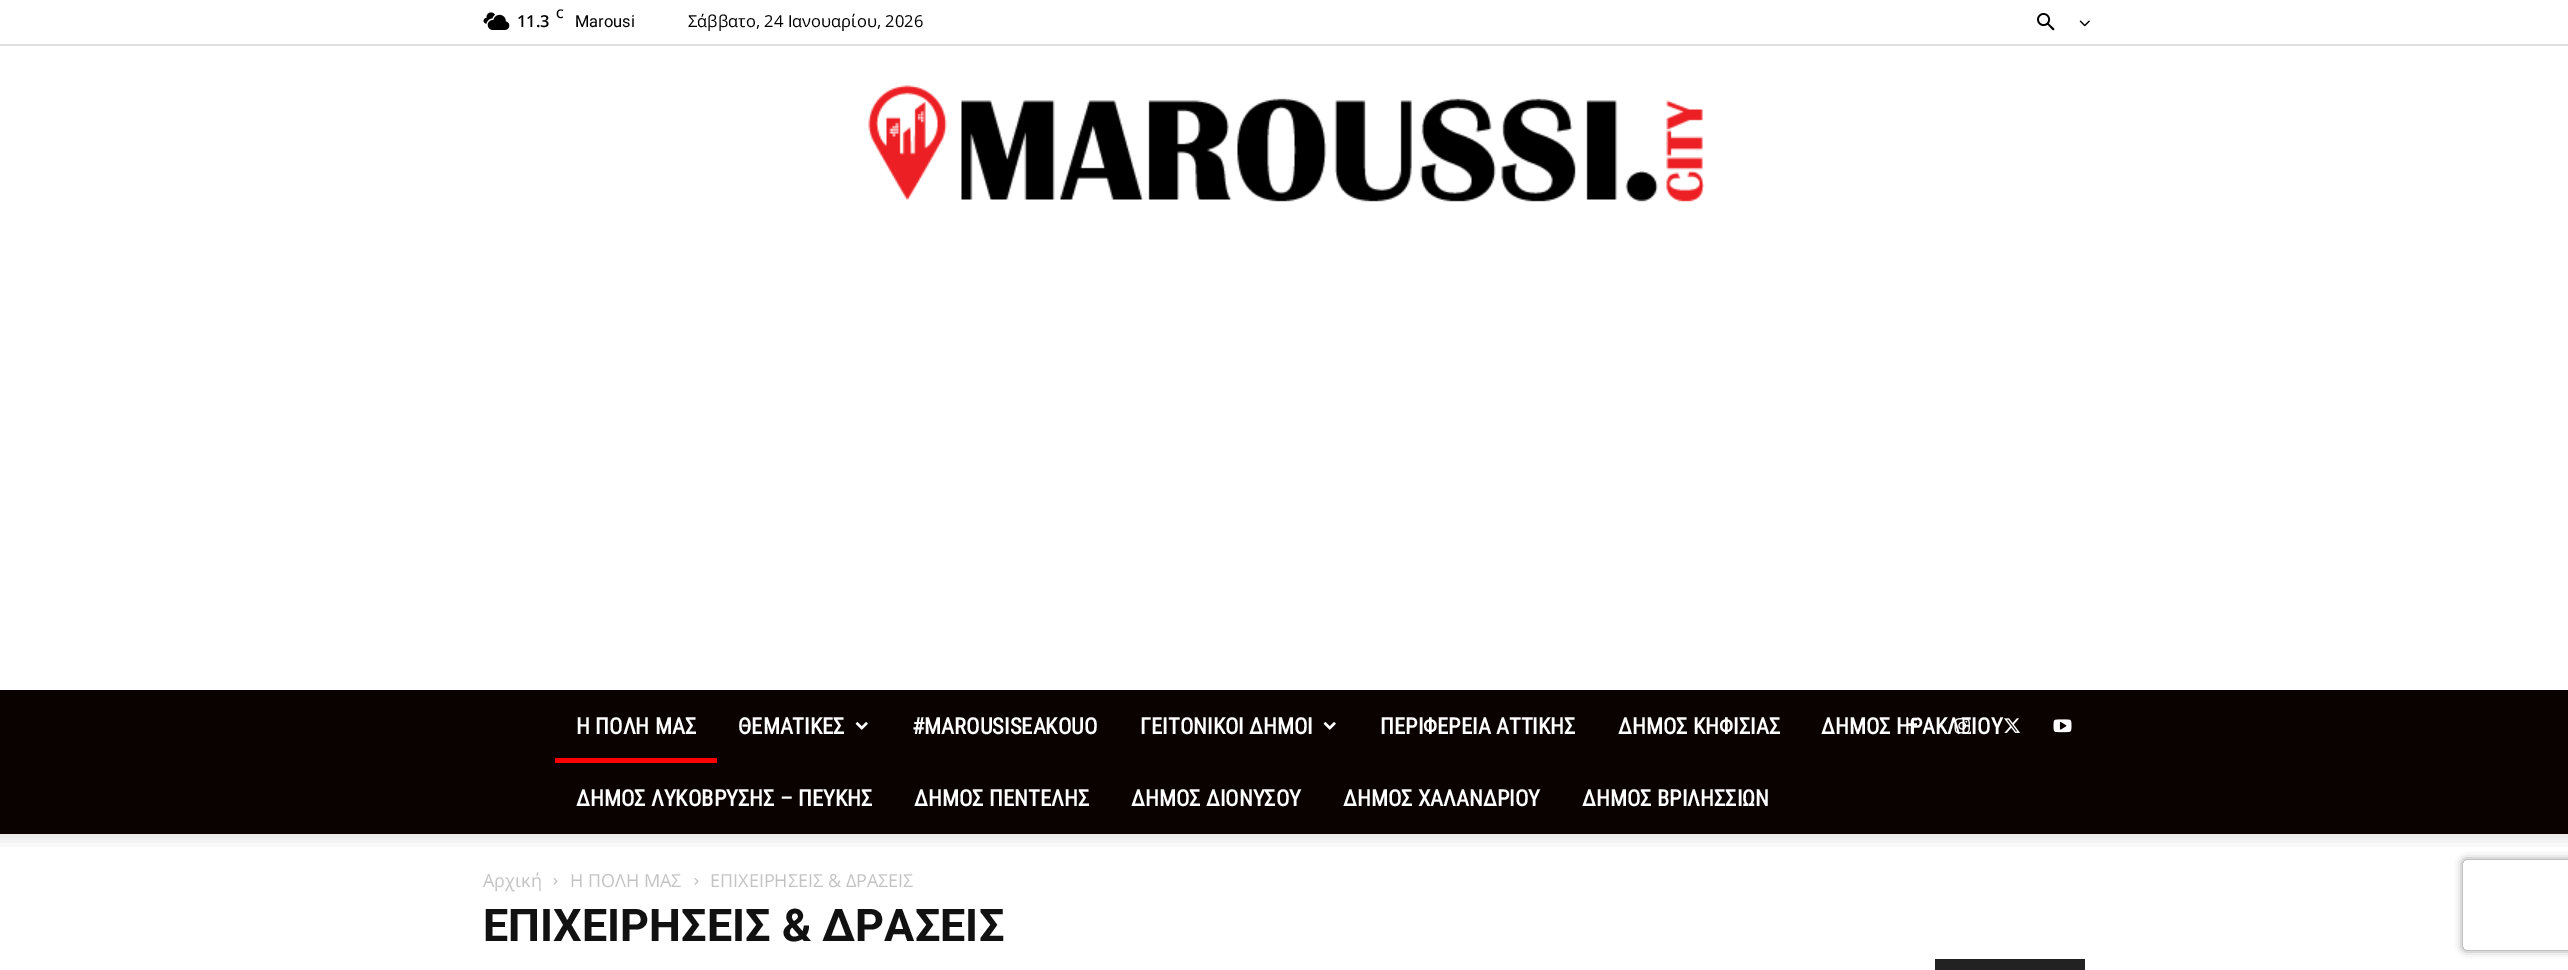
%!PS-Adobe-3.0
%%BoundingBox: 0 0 2568 970
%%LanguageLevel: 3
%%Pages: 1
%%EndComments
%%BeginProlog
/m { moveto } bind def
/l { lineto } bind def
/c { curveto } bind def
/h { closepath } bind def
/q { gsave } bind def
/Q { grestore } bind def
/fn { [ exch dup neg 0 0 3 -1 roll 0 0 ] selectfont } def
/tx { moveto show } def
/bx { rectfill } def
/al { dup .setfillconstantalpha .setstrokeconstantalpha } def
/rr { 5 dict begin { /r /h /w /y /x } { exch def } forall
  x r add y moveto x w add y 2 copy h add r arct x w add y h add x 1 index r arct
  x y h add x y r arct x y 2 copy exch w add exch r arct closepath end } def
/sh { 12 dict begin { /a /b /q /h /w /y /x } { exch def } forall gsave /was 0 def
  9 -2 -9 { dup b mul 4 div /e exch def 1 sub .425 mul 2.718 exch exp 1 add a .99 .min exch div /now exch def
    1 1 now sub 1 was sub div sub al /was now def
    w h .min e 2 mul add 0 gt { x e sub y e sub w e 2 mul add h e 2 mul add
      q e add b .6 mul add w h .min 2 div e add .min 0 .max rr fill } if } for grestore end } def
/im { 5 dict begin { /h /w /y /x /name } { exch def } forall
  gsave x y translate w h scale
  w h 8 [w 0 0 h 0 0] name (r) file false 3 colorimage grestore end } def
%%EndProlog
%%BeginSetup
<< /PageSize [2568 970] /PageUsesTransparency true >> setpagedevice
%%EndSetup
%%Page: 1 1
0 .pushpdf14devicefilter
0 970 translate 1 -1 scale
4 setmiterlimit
1 setgray
0 0 2568 970 bx
0.878 setgray
0 44 2568 2 bx
(image0.raw) 483 12 27 18 im
/OpenSans-SemiBold 12 fn
0 setgray
(C) 556 18 tx
/OpenSans-SemiBold 16.5 fn
(11.3) 517 27 tx
/Roboto-Regular 16.5 fn
(Marousi) 575 27 tx
/OpenSans-Regular 16.5 fn
(Σάββατο, 24 Ιανουαρίου, 2026) 688 27 tx
(image1.raw) 2037 13 18 18 im
(image2.raw) 2079 20 11 7 im
(image3.raw) 868 85 837 117 im
0.039 0.004 0.004 setrgbcolor
0 690 2568 144 bx
/RobotoCondensed-Bold 22.5 fn
1 setgray
(Η ΠΟΛΗ ΜΑΣ) 576 734 tx
1 0 0 setrgbcolor
555 758 162 5 bx
1 setgray
(ΘΕΜΑΤΙΚΕΣ) 738 734 tx
(image4.raw) 855 722 13 8 im
(#MAROUSISEAKOUO) 912 734 tx
(ΓΕΙΤΟΝΙΚΟΙ ΔΗΜΟΙ) 1140 734 tx
(image4.raw) 1323 722 13 8 im
(ΠΕΡΙΦΕΡΕΙΑ ΑΤΤΙΚΗΣ) 1380 734 tx
(ΔΗΜΟΣ ΚΗΦΙΣΙΑΣ) 1618 734 tx
(ΔΗΜΟΣ ΗΡΑΚΛΕΙΟΥ) 1821 734 tx
(ΔΗΜΟΣ ΛΥΚΟΒΡΥΣΗΣ – ΠΕΥΚΗΣ) 576 806 tx
(ΔΗΜΟΣ ΠΕΝΤΕΛΗΣ) 914 806 tx
(ΔΗΜΟΣ ΔΙΟΝΥΣΟΥ) 1131 806 tx
(ΔΗΜΟΣ ΧΑΛΑΝΔΡΙΟΥ) 1343 806 tx
(ΔΗΜΟΣ ΒΡΙΛΗΣΣΙΩΝ) 1582 806 tx
(image5.raw) 1908 717 9 17 im
(image6.raw) 1954 718 16 16 im
(image7.raw) 2004 718 16 15 im
(image8.raw) 2053 719 19 14 im
(image9.raw) 0 834 2568 13 im
/OpenSans-Regular 18 fn
0.765 setgray
(Αρχική) 483 887 tx
(image10.raw) 553 878 5 7 im
(Η ΠΟΛΗ ΜΑΣ) 570 887 tx
(image10.raw) 694 878 5 7 im
(ΕΠΙΧΕΙΡΗΣΕΙΣ & ΔΡΑΣΕΙΣ) 710 887 tx
/Roboto-Bold 45 fn
0.067 setgray
(ΕΠΙΧΕΙΡΗΣΕΙΣ & ΔΡΑΣΕΙΣ) 483 941 tx
0.133 setgray
1935 959 150 11 bx
q
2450 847 m 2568 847 l 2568 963 l 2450 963 l h 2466 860 m 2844 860 l 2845.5 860 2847 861.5 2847 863 c 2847 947 l 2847 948.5 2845.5 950 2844 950 c 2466 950 l 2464.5 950 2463 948.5 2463 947 c 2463 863 l 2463 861.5 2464.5 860 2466 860 c h eoclip newpath
0.502 setgray
2463 860 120 90 3 4 1 sh
Q
.poppdf14devicefilter showpage
%%EOF
